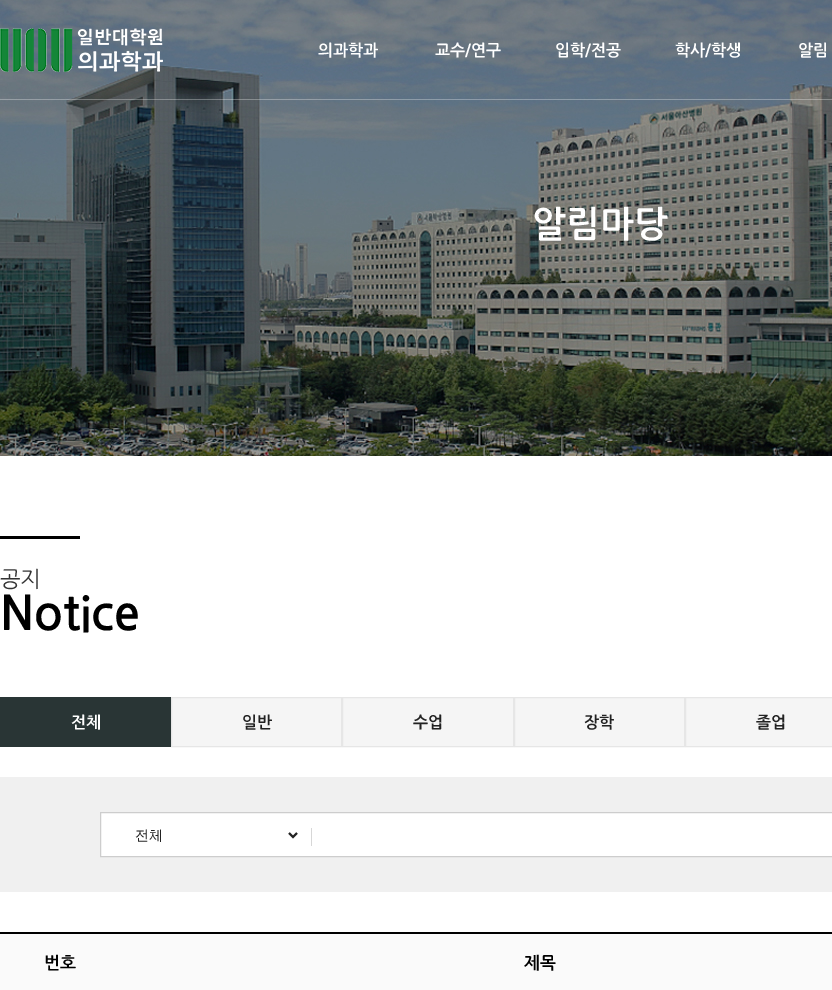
%!PS-Adobe-3.0
%%BoundingBox: 0 0 832 990
%%LanguageLevel: 3
%%Pages: 1
%%EndComments
%%BeginProlog
/m { moveto } bind def
/l { lineto } bind def
/h { closepath } bind def
/f { fill } bind def
/S { stroke } bind def
/q { gsave } bind def
/Q { grestore } bind def
/w { setlinewidth } bind def
/fn { [ exch dup neg 0 0 3 -1 roll 0 0 ] selectfont } def
/tx { moveto show } def
/bx { rectfill } def
/al { dup .setfillconstantalpha .setstrokeconstantalpha } def
/im { 5 dict begin { /h /w /y /x /name } { exch def } forall
  gsave x y translate w h scale
  w h 8 [w 0 0 h 0 0] name (r) file false 3 colorimage grestore end } def
%%EndProlog
%%BeginSetup
<< /PageSize [832 990] /PageUsesTransparency true >> setpagedevice
%%EndSetup
%%Page: 1 1
0 .pushpdf14devicefilter
0 990 translate 1 -1 scale
4 setmiterlimit
1 setgray
0 0 832 990 bx
(image1.raw) 0 0 832 456 im
0.3 al
0 99 832 1 bx
1 al
(image0.raw) 0 28 163 44 im
/NanumGothic-Bold 16 fn
(의과학과) 318 56 tx
(교수/연구) 435 56 tx
(입학/전공) 555 56 tx
(학사/학생) 675 56 tx
(알림) 798 56 tx
/NanumGothic-Bold 36 fn
(알림마당) 532 237 tx
0 setgray
0 536 80 3 bx
/NanumGothic-Regular 22 fn
0.2 setgray
0 587 m -1 0 (공지) ashow
/NanumGothic-Bold 47 fn
0 setgray
(Notice) 0 630 tx
0.161 0.208 0.208 setrgbcolor
0 697 171 50 bx
/NanumGothic-Bold 16 fn
1 setgray
(전체) 71 728 tx
0.961 setgray
171.5 697.5 m 341.5 697.5 l 341.5 746.5 l 171.5 746.5 l h q f Q
0.902 setgray
S
0.133 setgray
(일반) 242 728 tx
0.961 setgray
342.5 697.5 m 513.5 697.5 l 513.5 746.5 l 342.5 746.5 l h q f Q
0.902 setgray
S
0.133 setgray
(수업) 413 728 tx
0.961 setgray
514.5 697.5 m 684.5 697.5 l 684.5 746.5 l 514.5 746.5 l h q f Q
0.902 setgray
S
0.133 setgray
(장학) 584 728 tx
0.961 setgray
685.5 697.5 m 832.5 697.5 l 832.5 746.5 l 685.5 746.5 l h q f Q
0.902 setgray
S
0.133 setgray
(졸업) 756 728 tx
0.941 setgray
0 777 832 115 bx
1 setgray
100.5 812.5 m 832.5 812.5 l 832.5 856.5 l 100.5 856.5 l h q f Q
0.804 setgray
S
0.133 setgray
2 w
289 833 m 293 837 l 297 833 l S
/WenQuanYiZenHei-Medium 14 fn
(전체) 135 840 tx
0.843 setgray
311 828 1 18 bx
0.98 setgray
0 934 832 56 bx
/NanumGothic-Bold 17 fn
0 setgray
(번호) 44 969 tx
0 932 832 2 bx
(제목) 524 969 tx
.poppdf14devicefilter showpage
%%EOF
